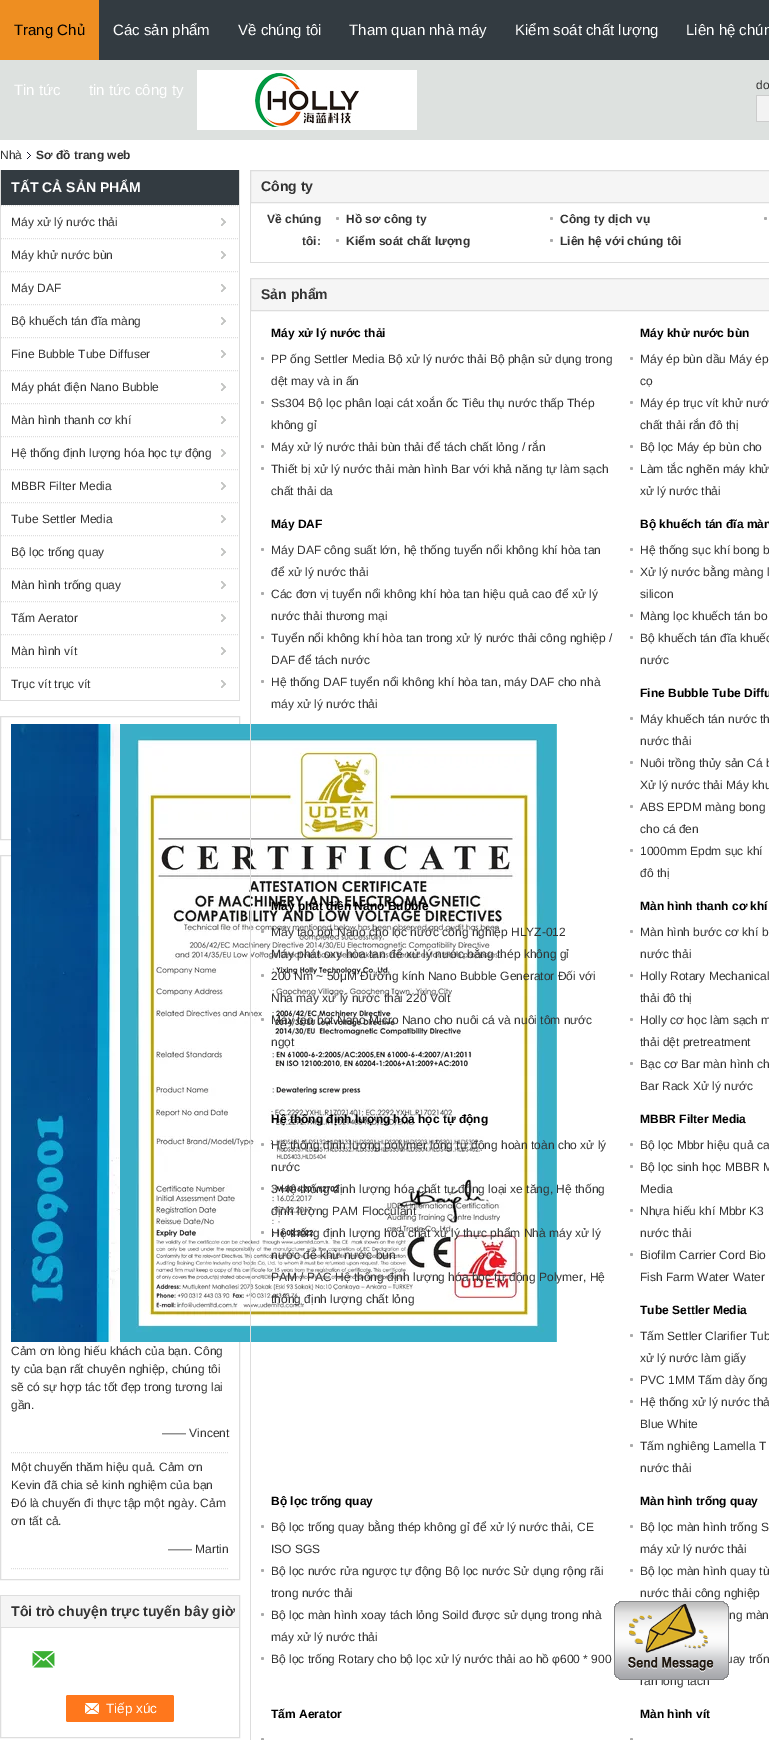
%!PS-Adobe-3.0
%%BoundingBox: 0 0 769 1740
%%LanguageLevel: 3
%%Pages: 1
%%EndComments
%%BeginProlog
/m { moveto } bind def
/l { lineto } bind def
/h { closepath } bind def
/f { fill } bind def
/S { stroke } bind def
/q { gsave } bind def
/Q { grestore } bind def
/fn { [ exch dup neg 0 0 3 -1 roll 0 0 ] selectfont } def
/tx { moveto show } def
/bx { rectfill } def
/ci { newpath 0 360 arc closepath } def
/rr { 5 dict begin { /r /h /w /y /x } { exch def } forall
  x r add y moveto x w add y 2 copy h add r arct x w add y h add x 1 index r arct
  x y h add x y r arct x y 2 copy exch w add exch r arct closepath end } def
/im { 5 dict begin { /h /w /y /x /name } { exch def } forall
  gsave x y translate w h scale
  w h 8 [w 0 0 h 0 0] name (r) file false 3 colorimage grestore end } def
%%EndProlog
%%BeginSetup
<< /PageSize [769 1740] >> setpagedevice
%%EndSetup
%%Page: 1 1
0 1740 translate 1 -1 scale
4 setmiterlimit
1 setgray
0 0 769 1740 bx
0.2 0.231 0.255 setrgbcolor
99 0 670 60 bx
0.933 0.557 0.129 setrgbcolor
0 0 99 60 bx
/LiberationSans-Regular 15 fn
0 setgray
(Trang Chủ) 14 35 tx
1 setgray
(Các sản phẩm) 113 35 tx
(Về chúng tôi) 238 35 tx
(Tham quan nhà máy) 349 35 tx
(Kiểm soát chất lượng) 515 35 tx
(Liên hệ chún) 686 35 tx
0.867 0.882 0.875 setrgbcolor
0 60 769 80 bx
1 setgray
(Tin tức) 14 95 tx
(tin tức công ty) 89 95 tx
(image0.raw) 197 70 220 60 im
/LiberationSans-Regular 12 fn
0.2 setgray
(do) 756 89 tx
0.953 setgray
757 96 12 25 bx
0.8 setgray
756 95 13 1 bx
756 121 13 1 bx
756 95 1 27 bx
0.2 setgray
(Nhà) 0 159 tx
(image1.raw) 27 152 4 7 im
/LiberationSans-Bold 12 fn
(Sơ đồ trang web) 36 159 tx
0.871 setgray
239 170 1 531 bx
0 700 240 1 bx
0 170 1 531 bx
0.2 0.231 0.255 setrgbcolor
1 170 238 35 bx
/LiberationSans-Bold 14 fn
1 setgray
(TẤT CẢ SẢN PHẨM) 11 192 tx
0.871 setgray
[1 1] 0 setdash
1 205.5 m 239 205.5 l S
/LiberationSans-Regular 12 fn
0.2 setgray
(Máy xử lý nước thải) 11 226 tx
(image2.raw) 221 218 5 8 im
0.871 setgray
1 238.5 m 239 238.5 l S
0.2 setgray
(Máy khử nước bùn) 11 259 tx
(image2.raw) 221 251 5 8 im
0.871 setgray
1 271.5 m 239 271.5 l S
0.2 setgray
(Máy DAF) 11 292 tx
(image2.raw) 221 284 5 8 im
0.871 setgray
1 304.5 m 239 304.5 l S
0.2 setgray
(Bộ khuếch tán đĩa màng) 11 325 tx
(image2.raw) 221 317 5 8 im
0.871 setgray
1 337.5 m 239 337.5 l S
0.2 setgray
(Fine Bubble Tube Diffuser) 11 358 tx
(image2.raw) 221 350 5 8 im
0.871 setgray
1 370.5 m 239 370.5 l S
0.2 setgray
(Máy phát điện Nano Bubble) 11 391 tx
(image2.raw) 221 383 5 8 im
0.871 setgray
1 403.5 m 239 403.5 l S
0.2 setgray
(Màn hình thanh cơ khí) 11 424 tx
(image2.raw) 221 416 5 8 im
0.871 setgray
1 436.5 m 239 436.5 l S
0.2 setgray
(Hệ thống định lượng hóa học tự động) 11 457 tx
(image2.raw) 221 449 5 8 im
0.871 setgray
1 469.5 m 239 469.5 l S
0.2 setgray
(MBBR Filter Media) 11 490 tx
(image2.raw) 221 482 5 8 im
0.871 setgray
1 502.5 m 239 502.5 l S
0.2 setgray
(Tube Settler Media) 11 523 tx
(image2.raw) 221 515 5 8 im
0.871 setgray
1 535.5 m 239 535.5 l S
0.2 setgray
(Bộ lọc trống quay) 11 556 tx
(image2.raw) 221 548 5 8 im
0.871 setgray
1 568.5 m 239 568.5 l S
0.2 setgray
(Màn hình trống quay) 11 589 tx
(image2.raw) 221 581 5 8 im
0.871 setgray
1 601.5 m 239 601.5 l S
0.2 setgray
(Tấm Aerator) 11 622 tx
(image2.raw) 221 614 5 8 im
0.871 setgray
1 634.5 m 239 634.5 l S
0.2 setgray
(Màn hình vít) 11 655 tx
(image2.raw) 221 647 5 8 im
0.871 setgray
1 667.5 m 239 667.5 l S
0.2 setgray
(Trục vít trục vít) 11 688 tx
(image2.raw) 221 680 5 8 im
0.871 setgray
[] 0 setdash
0.5 716.5 239 123 rectstroke
0.5 855.5 239 724 rectstroke
(image3.raw) 11 724 109 618 im
(image4.raw) 120 724 437 618 im
[1 1] 0 setdash
11 1452.5 m 229 1452.5 l S
0.2 setgray
(Cảm ơn lòng hiếu khách của bạn. Công) 11 1355 tx
(ty của bạn rất chuyên nghiệp, chúng tôi) 11 1373 tx
(sẽ có sự hợp tác tốt đẹp trong tương lai) 11 1391 tx
(gần.) 11 1409 tx
(—— Vincent) 162 1437 tx
0.871 setgray
11 1568.5 m 229 1568.5 l S
0.2 setgray
(Một chuyến thăm hiệu quả. Cảm ơn) 11 1471 tx
(Kevin đã chia sẻ kinh nghiệm của bạn) 11 1489 tx
(Đó là chuyến đi thực tập một ngày. Cảm) 11 1507 tx
(ơn tất cả.) 11 1525 tx
(—— Martin) 168 1553 tx
0.871 setgray
[] 0 setdash
0.5 1595.5 239 142 rectstroke
0.961 setgray
1 1596 238 31 bx
0.871 setgray
1 1627 238 1 bx
/LiberationSans-Bold 14 fn
0.2 setgray
(Tôi trò chuyện trực tuyến bây giờ) 11 1616 tx
(image5.raw) 32 1651 23 17 im
1 0.467 0.11 setrgbcolor
66 1695 108 27 2 rr f
(image6.raw) 85 1703 14 11 im
/LiberationSans-Regular 13.5 fn
1 setgray
(Tiếp xúc) 106 1713 tx
0.961 setgray
250.5 170.5 m 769.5 170.5 l 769.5 202.5 l 250.5 202.5 l h q f Q
0.867 setgray
S
/LiberationSans-Bold 14 fn
0.2 setgray
(Công ty) 261 191 tx
0.867 setgray
250 262 519 1 bx
250 203 1 60 bx
/LiberationSans-Bold 12 fn
0.2 setgray
(Về chúng) 267 223 tx
(tôi:) 302 245 tx
0.667 setgray
337.5 218.5 1.5 ci f
0.2 setgray
(Hồ sơ công ty) 346 223 tx
0.667 setgray
551.5 218.5 1.5 ci f
0.2 setgray
(Công ty dịch vụ) 560 223 tx
0.667 setgray
765.5 218.5 1.5 ci f
337.5 240.5 1.5 ci f
0.2 setgray
(Kiểm soát chất lượng) 346 245 tx
0.667 setgray
551.5 240.5 1.5 ci f
0.2 setgray
(Liên hệ với chúng tôi) 560 245 tx
0.961 setgray
250.5 278.5 m 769.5 278.5 l 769.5 310.5 l 250.5 310.5 l h q f Q
0.867 setgray
S
/LiberationSans-Bold 14 fn
0.2 setgray
(Sản phẩm) 261 299 tx
0.867 setgray
250 311 1 1429 bx
/LiberationSans-Bold 12 fn
0 setgray
(Máy xử lý nước thải) 271 337 tx
0.667 setgray
262.5 358.5 1.5 ci f
/LiberationSans-Regular 12 fn
0.2 setgray
(PP ống Settler Media Bộ xử lý nước thải Bộ phận sử dụng trong) 271 363 tx
(dệt may và in ấn) 271 385 tx
0.667 setgray
262.5 402.5 1.5 ci f
0.2 setgray
(Ss304 Bộ lọc phân loại cát xoắn ốc Tiêu thụ nước thấp Thép) 271 407 tx
(không gỉ) 271 429 tx
0.667 setgray
262.5 446.5 1.5 ci f
0.2 setgray
(Máy xử lý nước thải bùn thải để tách chất lỏng / rắn) 271 451 tx
0.667 setgray
262.5 468.5 1.5 ci f
0.2 setgray
(Thiết bị xử lý nước thải màn hình Bar với khả năng tự làm sạch) 271 473 tx
(chất thải da) 271 495 tx
/LiberationSans-Bold 12 fn
0 setgray
(Máy khử nước bùn) 640 337 tx
0.667 setgray
631.5 358.5 1.5 ci f
/LiberationSans-Regular 12 fn
0.2 setgray
(Máy ép bùn dầu Máy ép) 640 363 tx
(cọ) 640 385 tx
0.667 setgray
631.5 402.5 1.5 ci f
0.2 setgray
(Máy ép trục vít khử nướ) 640 407 tx
(chất thải rắn đô thị) 640 429 tx
0.667 setgray
631.5 446.5 1.5 ci f
0.2 setgray
(Bộ lọc Máy ép bùn cho) 640 451 tx
0.667 setgray
631.5 468.5 1.5 ci f
0.2 setgray
(Làm tắc nghẽn máy khử) 640 473 tx
(xử lý nước thải) 640 495 tx
/LiberationSans-Bold 12 fn
0 setgray
(Máy DAF) 271 528 tx
0.667 setgray
262.5 549.5 1.5 ci f
/LiberationSans-Regular 12 fn
0.2 setgray
(Máy DAF công suất lớn, hệ thống tuyển nổi không khí hòa tan) 271 554 tx
(để xử lý nước thải) 271 576 tx
0.667 setgray
262.5 593.5 1.5 ci f
0.2 setgray
(Các đơn vị tuyển nổi không khí hòa tan hiệu quả cao để xử lý) 271 598 tx
(nước thải thương mại) 271 620 tx
0.667 setgray
262.5 637.5 1.5 ci f
0.2 setgray
(Tuyển nổi không khí hòa tan trong xử lý nước thải công nghiệp /) 271 642 tx
(DAF để tách nước) 271 664 tx
0.667 setgray
262.5 681.5 1.5 ci f
0.2 setgray
(Hệ thống DAF tuyển nổi không khí hòa tan, máy DAF cho nhà) 271 686 tx
(máy xử lý nước thải) 271 708 tx
/LiberationSans-Bold 12 fn
0 setgray
(Bộ khuếch tán đĩa màn) 640 528 tx
0.667 setgray
631.5 549.5 1.5 ci f
/LiberationSans-Regular 12 fn
0.2 setgray
(Hệ thống sục khí bong b) 640 554 tx
0.667 setgray
631.5 571.5 1.5 ci f
0.2 setgray
(Xử lý nước bằng màng l) 640 576 tx
(silicon) 640 598 tx
0.667 setgray
631.5 615.5 1.5 ci f
0.2 setgray
(Màng lọc khuếch tán bo) 640 620 tx
0.667 setgray
631.5 637.5 1.5 ci f
0.2 setgray
(Bộ khuếch tán đĩa khuếc) 640 642 tx
(nước) 640 664 tx
/LiberationSans-Bold 12 fn
0 setgray
(Fine Bubble Tube Diffu) 640 697 tx
0.667 setgray
631.5 718.5 1.5 ci f
/LiberationSans-Regular 12 fn
0.2 setgray
(Máy khuếch tán nước th) 640 723 tx
(nước thải) 640 745 tx
0.667 setgray
631.5 762.5 1.5 ci f
0.2 setgray
(Nuôi trồng thủy sản Cá b) 640 767 tx
(Xử lý nước thải Máy khu) 640 789 tx
0.667 setgray
631.5 806.5 1.5 ci f
0.2 setgray
(ABS EPDM màng bong) 640 811 tx
(cho cá đen) 640 833 tx
0.667 setgray
631.5 850.5 1.5 ci f
0.2 setgray
(1000mm Epdm sục khí) 640 855 tx
(đô thị) 640 877 tx
/LiberationSans-Bold 12 fn
0 setgray
(Máy phát điện Nano Bubble) 271 910 tx
0.667 setgray
262.5 931.5 1.5 ci f
/LiberationSans-Regular 12 fn
0.2 setgray
(Máy tạo bọt Nano cho lọc nước công nghiệp HLYZ-012) 271 936 tx
0.667 setgray
262.5 953.5 1.5 ci f
0.2 setgray
(Máy phát oxy hòa tan để xử lý nước bằng thép không gỉ) 271 958 tx
0.667 setgray
262.5 975.5 1.5 ci f
0.2 setgray
(200 Nm ~ 50μM Đường kính Nano Bubble Generator Đối với) 271 980 tx
(Nhà máy xử lý nước thải 220 Volt) 271 1002 tx
0.667 setgray
262.5 1019.5 1.5 ci f
0.2 setgray
(Máy tạo bọt Nano Micro Nano cho nuôi cá và nuôi tôm nước) 271 1024 tx
(ngọt) 271 1046 tx
/LiberationSans-Bold 12 fn
0 setgray
(Màn hình thanh cơ khí) 640 910 tx
0.667 setgray
631.5 931.5 1.5 ci f
/LiberationSans-Regular 12 fn
0.2 setgray
(Màn hình bước cơ khí b) 640 936 tx
(nước thải) 640 958 tx
0.667 setgray
631.5 975.5 1.5 ci f
0.2 setgray
(Holly Rotary Mechanical) 640 980 tx
(thải đô thị) 640 1002 tx
0.667 setgray
631.5 1019.5 1.5 ci f
0.2 setgray
(Holly cơ học làm sạch m) 640 1024 tx
(thải dệt pretreatment) 640 1046 tx
0.667 setgray
631.5 1063.5 1.5 ci f
0.2 setgray
(Bạc cơ Bar màn hình ch) 640 1068 tx
(Bar Rack Xử lý nước) 640 1090 tx
/LiberationSans-Bold 12 fn
0 setgray
(Hệ thống định lượng hóa học tự động) 271 1123 tx
0.667 setgray
262.5 1144.5 1.5 ci f
/LiberationSans-Regular 12 fn
0.2 setgray
(Hệ thống định lượng polymer lỏng tự động hoàn toàn cho xử lý) 271 1149 tx
(nước) 271 1171 tx
0.667 setgray
262.5 1188.5 1.5 ci f
0.2 setgray
(3 Hệ thống định lượng hóa chất tự động loại xe tăng, Hệ thống) 271 1193 tx
(định lượng PAM Flocculant) 271 1215 tx
0.667 setgray
262.5 1232.5 1.5 ci f
0.2 setgray
(Hệ thống định lượng hóa chất xử lý thực phẩm Nhà máy xử lý) 271 1237 tx
(nước để khử nước bùn) 271 1259 tx
0.667 setgray
262.5 1276.5 1.5 ci f
0.2 setgray
(PAM / PAC Hệ thống định lượng hóa học tự động Polymer, Hệ) 271 1281 tx
(thống định lượng chất lỏng) 271 1303 tx
/LiberationSans-Bold 12 fn
0 setgray
(MBBR Filter Media) 640 1123 tx
0.667 setgray
631.5 1144.5 1.5 ci f
/LiberationSans-Regular 12 fn
0.2 setgray
(Bộ lọc Mbbr hiệu quả ca) 640 1149 tx
0.667 setgray
631.5 1166.5 1.5 ci f
0.2 setgray
(Bộ lọc sinh học MBBR M) 640 1171 tx
(Media) 640 1193 tx
0.667 setgray
631.5 1210.5 1.5 ci f
0.2 setgray
(Nhựa hiếu khí Mbbr K3) 640 1215 tx
(nước thải) 640 1237 tx
0.667 setgray
631.5 1254.5 1.5 ci f
0.2 setgray
(Biofilm Carrier Cord Bio) 640 1259 tx
(Fish Farm Water Water) 640 1281 tx
/LiberationSans-Bold 12 fn
0 setgray
(Tube Settler Media) 640 1314 tx
0.667 setgray
631.5 1335.5 1.5 ci f
/LiberationSans-Regular 12 fn
0.2 setgray
(Tấm Settler Clarifier Tub) 640 1340 tx
(xử lý nước làm giấy) 640 1362 tx
0.667 setgray
631.5 1379.5 1.5 ci f
0.2 setgray
(PVC 1MM Tấm dày ống) 640 1384 tx
0.667 setgray
631.5 1401.5 1.5 ci f
0.2 setgray
(Hệ thống xử lý nước thả) 640 1406 tx
(Blue White) 640 1428 tx
0.667 setgray
631.5 1445.5 1.5 ci f
0.2 setgray
(Tấm nghiêng Lamella T) 640 1450 tx
(nước thải) 640 1472 tx
/LiberationSans-Bold 12 fn
0 setgray
(Bộ lọc trống quay) 271 1505 tx
0.667 setgray
262.5 1526.5 1.5 ci f
/LiberationSans-Regular 12 fn
0.2 setgray
(Bộ lọc trống quay bằng thép không gỉ để xử lý nước thải, CE) 271 1531 tx
(ISO SGS) 271 1553 tx
0.667 setgray
262.5 1570.5 1.5 ci f
0.2 setgray
(Bộ lọc nước rửa ngược tự động Bộ lọc nước Sử dụng rộng rãi) 271 1575 tx
(trong nước thải) 271 1597 tx
0.667 setgray
262.5 1614.5 1.5 ci f
0.2 setgray
(Bộ lọc màn hình xoay tách lỏng Soild được sử dụng trong nhà) 271 1619 tx
(máy xử lý nước thải) 271 1641 tx
0.667 setgray
262.5 1658.5 1.5 ci f
0.2 setgray
(Bộ lọc trống Rotary cho bộ lọc xử lý nước thải ao hồ φ600 * 900) 271 1663 tx
/LiberationSans-Bold 12 fn
0 setgray
(Màn hình trống quay) 640 1505 tx
0.667 setgray
631.5 1526.5 1.5 ci f
/LiberationSans-Regular 12 fn
0.2 setgray
(Bộ lọc màn hình trống S) 640 1531 tx
(máy xử lý nước thải) 640 1553 tx
0.667 setgray
631.5 1570.5 1.5 ci f
0.2 setgray
(Bộ lọc màn hình quay tù) 640 1575 tx
(nước thải công nghiệp) 640 1597 tx
(ng màn) 729 1619 tx
(uay trốn) 726 1663 tx
(rắn lỏng tách) 640 1685 tx
/LiberationSans-Bold 12 fn
0 setgray
(Tấm Aerator) 271 1718 tx
0.667 setgray
262.5 1739.5 1.5 ci f
0 setgray
(Màn hình vít) 640 1718 tx
0.667 setgray
631.5 1739.5 1.5 ci f
(image7.raw) 614 1601 115 79 im
showpage
%%EOF
